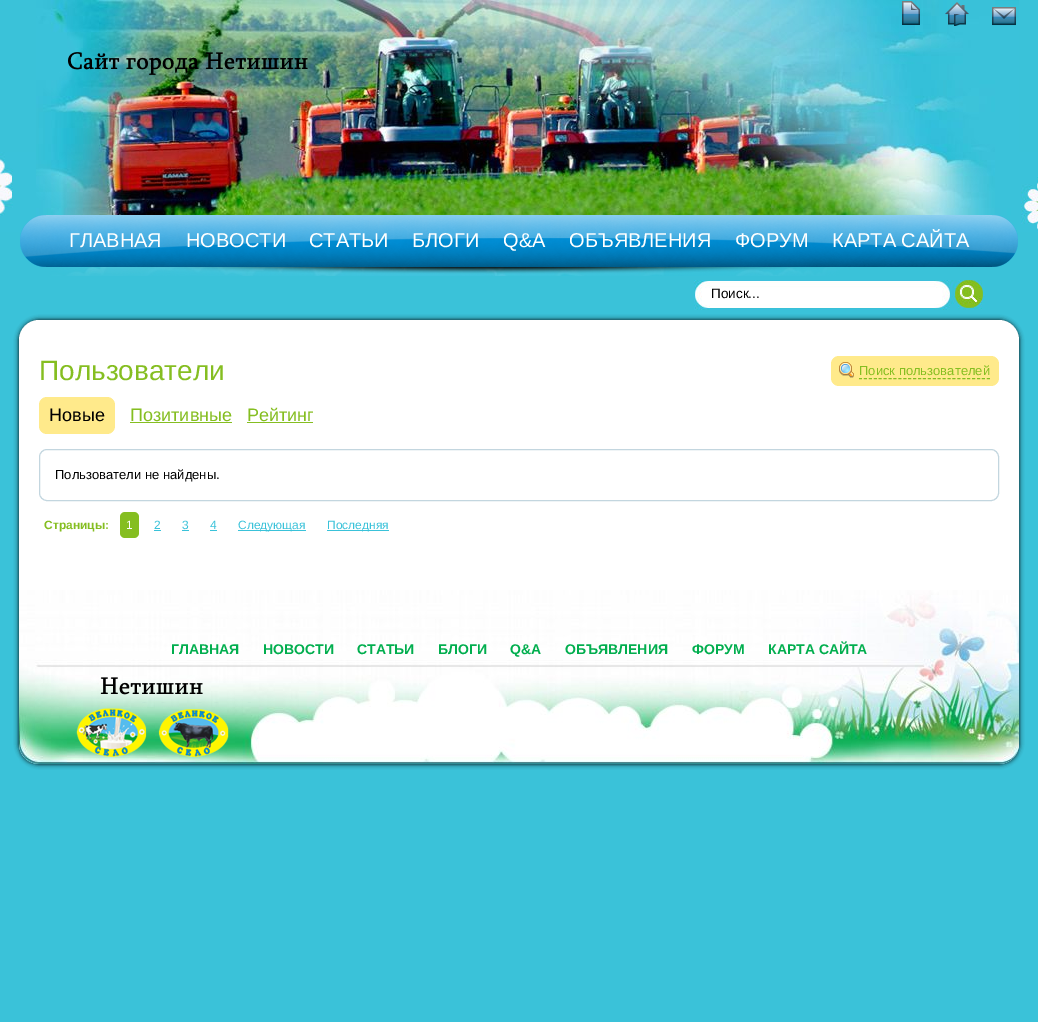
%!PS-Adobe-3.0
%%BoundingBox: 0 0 1038 1022
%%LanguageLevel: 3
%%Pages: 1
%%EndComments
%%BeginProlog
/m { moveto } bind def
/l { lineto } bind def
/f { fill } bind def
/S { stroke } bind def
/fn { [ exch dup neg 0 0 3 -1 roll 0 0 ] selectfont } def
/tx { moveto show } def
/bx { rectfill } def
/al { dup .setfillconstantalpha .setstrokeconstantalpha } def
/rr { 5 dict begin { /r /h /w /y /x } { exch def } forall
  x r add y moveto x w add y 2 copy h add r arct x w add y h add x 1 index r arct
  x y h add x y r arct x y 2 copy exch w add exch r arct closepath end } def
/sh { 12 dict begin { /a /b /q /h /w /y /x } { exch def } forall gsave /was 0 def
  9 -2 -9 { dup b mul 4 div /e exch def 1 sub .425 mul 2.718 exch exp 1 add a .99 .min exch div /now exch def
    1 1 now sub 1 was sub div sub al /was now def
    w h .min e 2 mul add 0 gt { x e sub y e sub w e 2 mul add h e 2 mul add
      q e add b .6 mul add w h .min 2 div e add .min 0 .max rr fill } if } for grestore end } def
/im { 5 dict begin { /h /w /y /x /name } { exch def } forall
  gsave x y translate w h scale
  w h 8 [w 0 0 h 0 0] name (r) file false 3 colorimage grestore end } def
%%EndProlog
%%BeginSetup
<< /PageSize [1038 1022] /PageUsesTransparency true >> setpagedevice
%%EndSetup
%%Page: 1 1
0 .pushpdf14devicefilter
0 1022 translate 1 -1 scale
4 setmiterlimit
0.227 0.761 0.851 setrgbcolor
0 0 1038 1022 bx
(image0.raw) 0 152 1038 80 im
(image1.raw) 36 0 983 215 im
(image2.raw) 902 1 18 24 im
(image3.raw) 945 2 24 24 im
(image4.raw) 992 7 24 19 im
(image5.raw) 68 52 240 23 im
(image6.raw) 20 215 998 61 im
/LiberationSans-Regular 20 fn
1 setgray
(ГЛАВНАЯ) 69 247 tx
(НОВОСТИ) 186 247 tx
(СТАТЬИ) 309 247 tx
(БЛОГИ) 412 247 tx
(Q&A) 503 247 tx
(ОБЪЯВЛЕНИЯ) 569 247 tx
(ФОРУМ) 735 247 tx
(КАРТА САЙТА) 832 247 tx
(image7.raw) 694 280 291 30 im
/LiberationSans-Regular 13.5 fn
0 setgray
(Поиск...) 711 298 tx
19 320 1000 444 20 2.5 1 sh
1 setgray
19 320 1000 444 20 rr f
/LiberationSans-Regular 28 fn
0.522 0.745 0.129 setrgbcolor
(Пользователи) 39 380 tx
1 0.918 0.545 setrgbcolor
831 356 168 30 8 rr f
(image8.raw) 839 362 15 16 im
/LiberationSans-Regular 13 fn
0.522 0.745 0.129 setrgbcolor
(Поиск пользователей) 859 375 tx
[3 1.92] 0 setdash
859 378.5 m 990 378.5 l S
1 0.918 0.545 setrgbcolor
39 397 76 37 8 rr f
/LiberationSans-Regular 18 fn
0 setgray
(Новые) 49 421 tx
0.522 0.745 0.129 setrgbcolor
(Позитивные) 130 421 tx
130 422 102 1 bx
(Рейтинг) 247 421 tx
247 422 66 1 bx
0.765 0.839 0.875 setrgbcolor
[] 0 setdash
39.5 449.5 959 51 7.5 rr S
/LiberationSans-Regular 13 fn
0 setgray
(Пользователи не найдены.) 55 479 tx
/LiberationSans-Bold 12 fn
0.522 0.745 0.129 setrgbcolor
(Страницы:) 44 529 tx
120 512 19 26 5 rr f
/LiberationSans-Regular 12 fn
1 setgray
(1) 126 529 tx
0.227 0.761 0.851 setrgbcolor
(2) 154 529 tx
154 530 7 1 bx
(3) 182 529 tx
182 530 7 1 bx
(4) 210 529 tx
210 530 7 1 bx
238 530 68 1 bx
(Следующая) 238 529 tx
327 530 62 1 bx
(Последняя) 327 529 tx
(image9.raw) 19 590 1000 174 im
/LiberationSans-Bold 14 fn
0.004 0.682 0.306 setrgbcolor
(ГЛАВНАЯ) 171 654 tx
(НОВОСТИ) 263 654 tx
(СТАТЬИ) 357 654 tx
(БЛОГИ) 438 654 tx
(Q&A) 510 654 tx
(ОБЪЯВЛЕНИЯ) 565 654 tx
(ФОРУМ) 692 654 tx
(КАРТА САЙТА) 768 654 tx
(image10.raw) 76 677 175 80 im
.poppdf14devicefilter showpage
%%EOF
